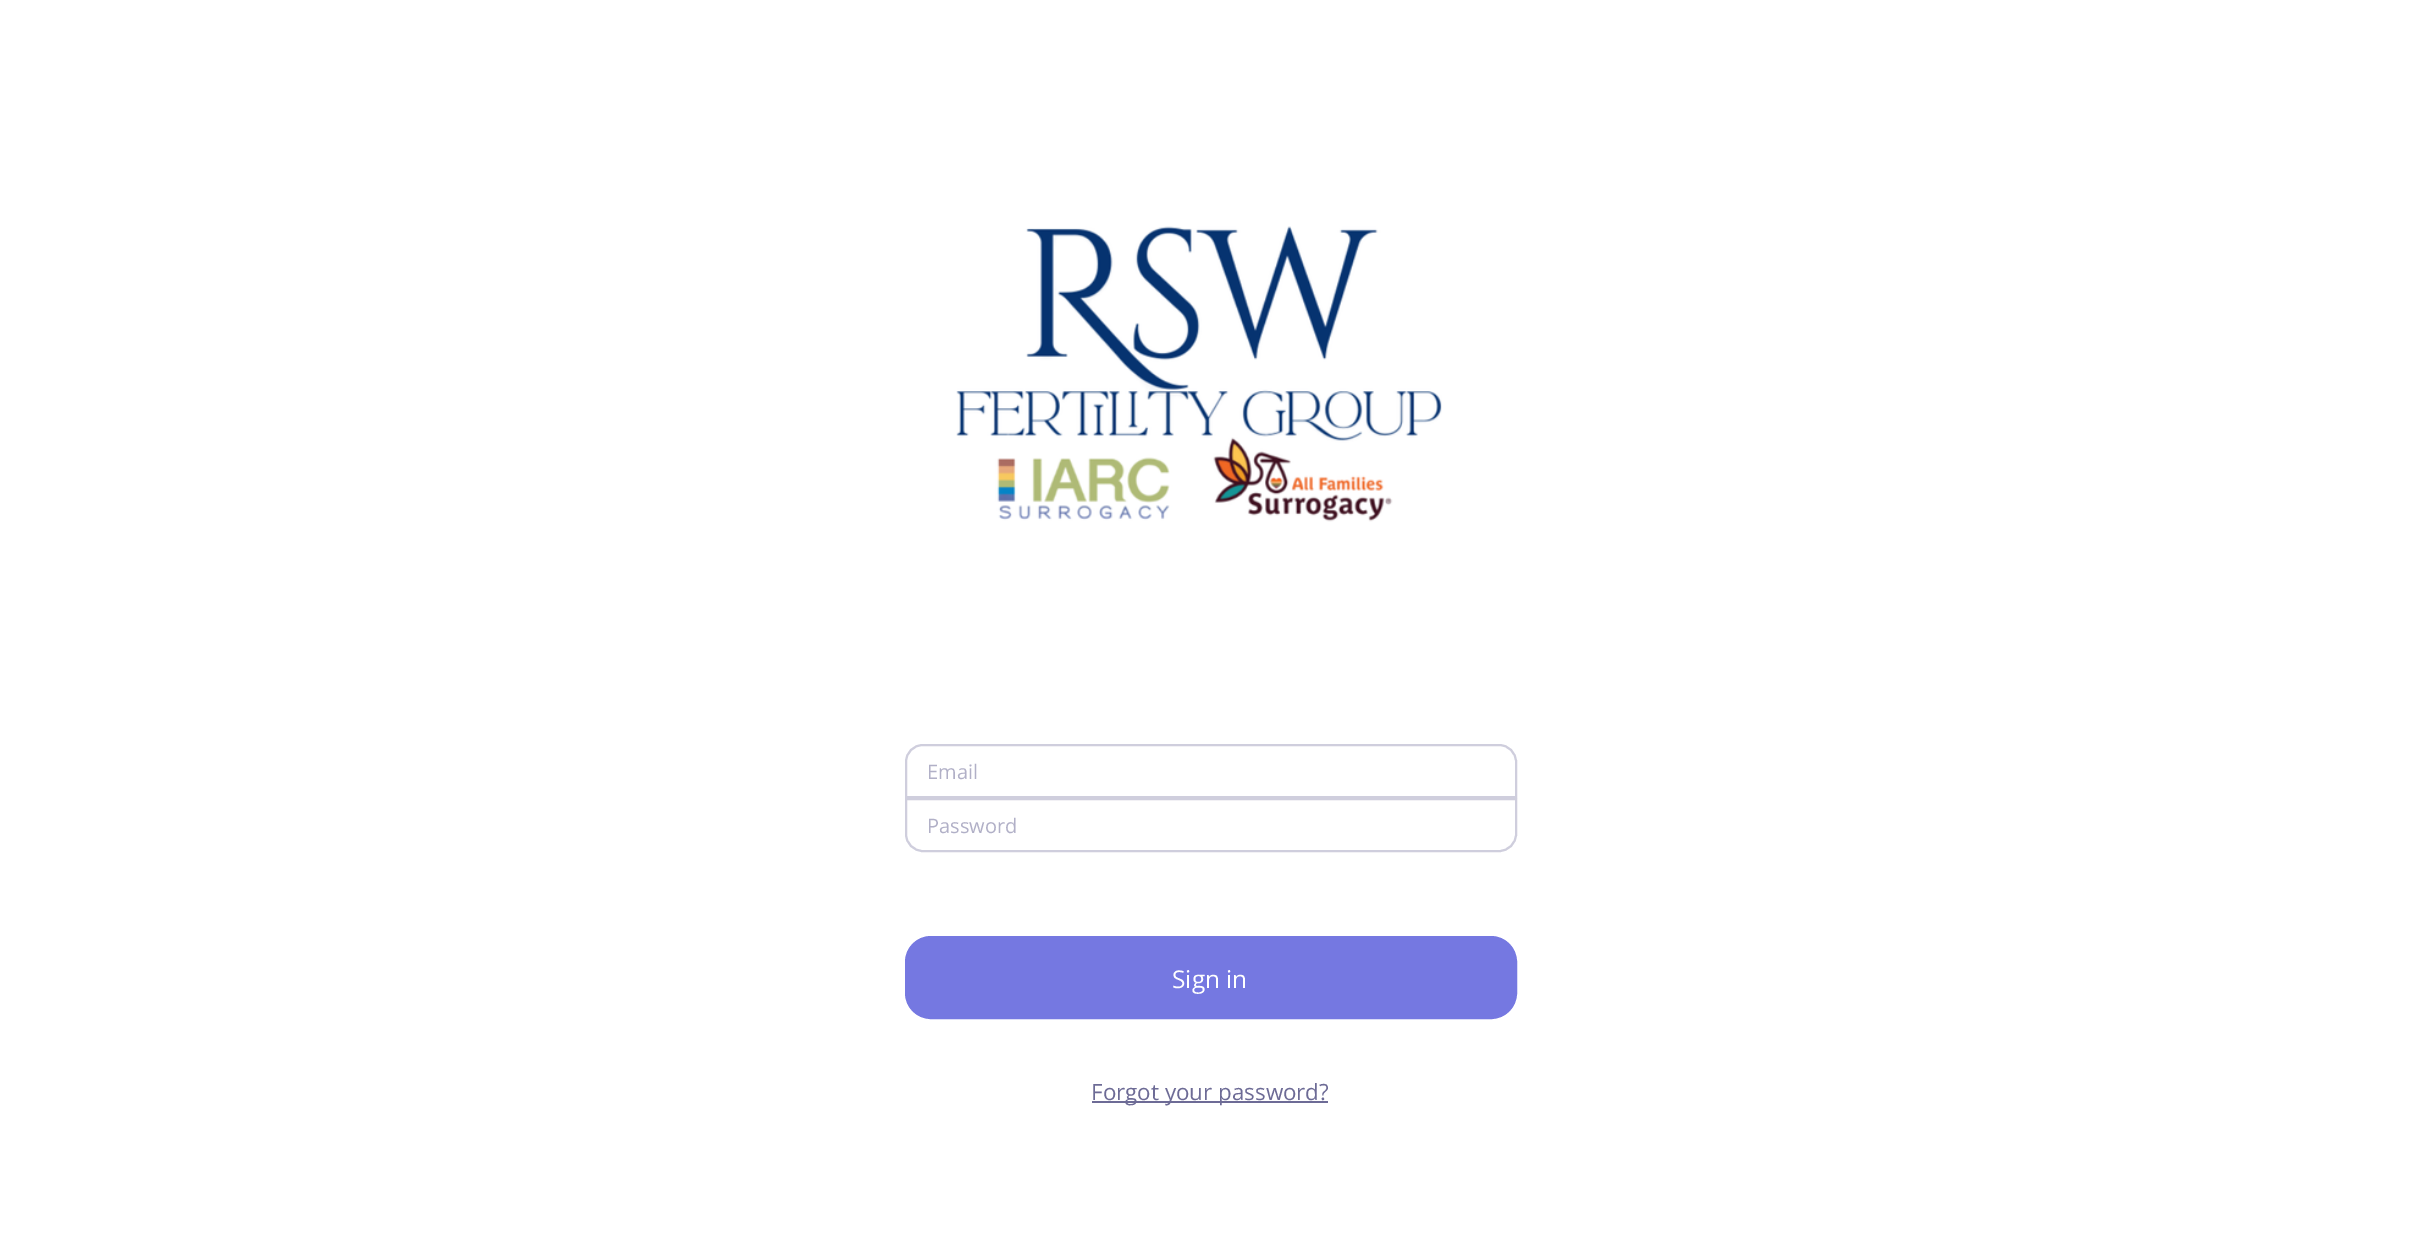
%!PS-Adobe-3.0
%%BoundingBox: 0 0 2419 1236
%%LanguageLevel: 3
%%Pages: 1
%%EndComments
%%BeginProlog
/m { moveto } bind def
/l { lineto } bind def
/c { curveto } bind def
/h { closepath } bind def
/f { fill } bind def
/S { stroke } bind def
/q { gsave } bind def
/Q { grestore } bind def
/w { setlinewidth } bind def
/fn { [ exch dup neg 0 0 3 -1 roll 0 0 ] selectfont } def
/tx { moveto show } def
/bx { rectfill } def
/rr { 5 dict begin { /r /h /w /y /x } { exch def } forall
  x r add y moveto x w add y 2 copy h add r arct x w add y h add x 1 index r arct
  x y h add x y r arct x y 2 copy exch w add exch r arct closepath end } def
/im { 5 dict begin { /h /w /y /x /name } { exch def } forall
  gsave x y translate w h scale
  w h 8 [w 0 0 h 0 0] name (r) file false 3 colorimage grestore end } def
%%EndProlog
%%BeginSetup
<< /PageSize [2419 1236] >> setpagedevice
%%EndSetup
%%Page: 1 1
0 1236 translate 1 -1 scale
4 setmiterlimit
1 setgray
0 0 2419 1236 bx
(image0.raw) 956 226 486 296 im
0.812 0.808 0.867 setrgbcolor
2 w
923 745 m 1499 745 l 1508.5 745 1516 752.5 1516 762 c 1516 797 l 906 797 l 906 762 l 906 752.5 913.5 745 923 745 c h S
/OpenSans-Regular 20 fn
0.694 0.69 0.78 setrgbcolor
(Email) 927 779 tx
0.812 0.808 0.867 setrgbcolor
906 799 m 1516 799 l 1516 834 l 1516 843.5 1508.5 851 1499 851 c 923 851 l 913.5 851 906 843.5 906 834 c h S
0.694 0.69 0.78 setrgbcolor
(Password) 927 833 tx
0.459 0.471 0.882 setrgbcolor
906 937 610 81 25 rr q f Q
S
/OpenSans-Regular 24.5 fn
1 setgray
(Sign in) 1172 988 tx
0.427 0.42 0.588 setrgbcolor
1092 1101 236 2 bx
/OpenSans-Regular 22.4 fn
(Forgot your password?) 1091 1100 tx
showpage
%%EOF
